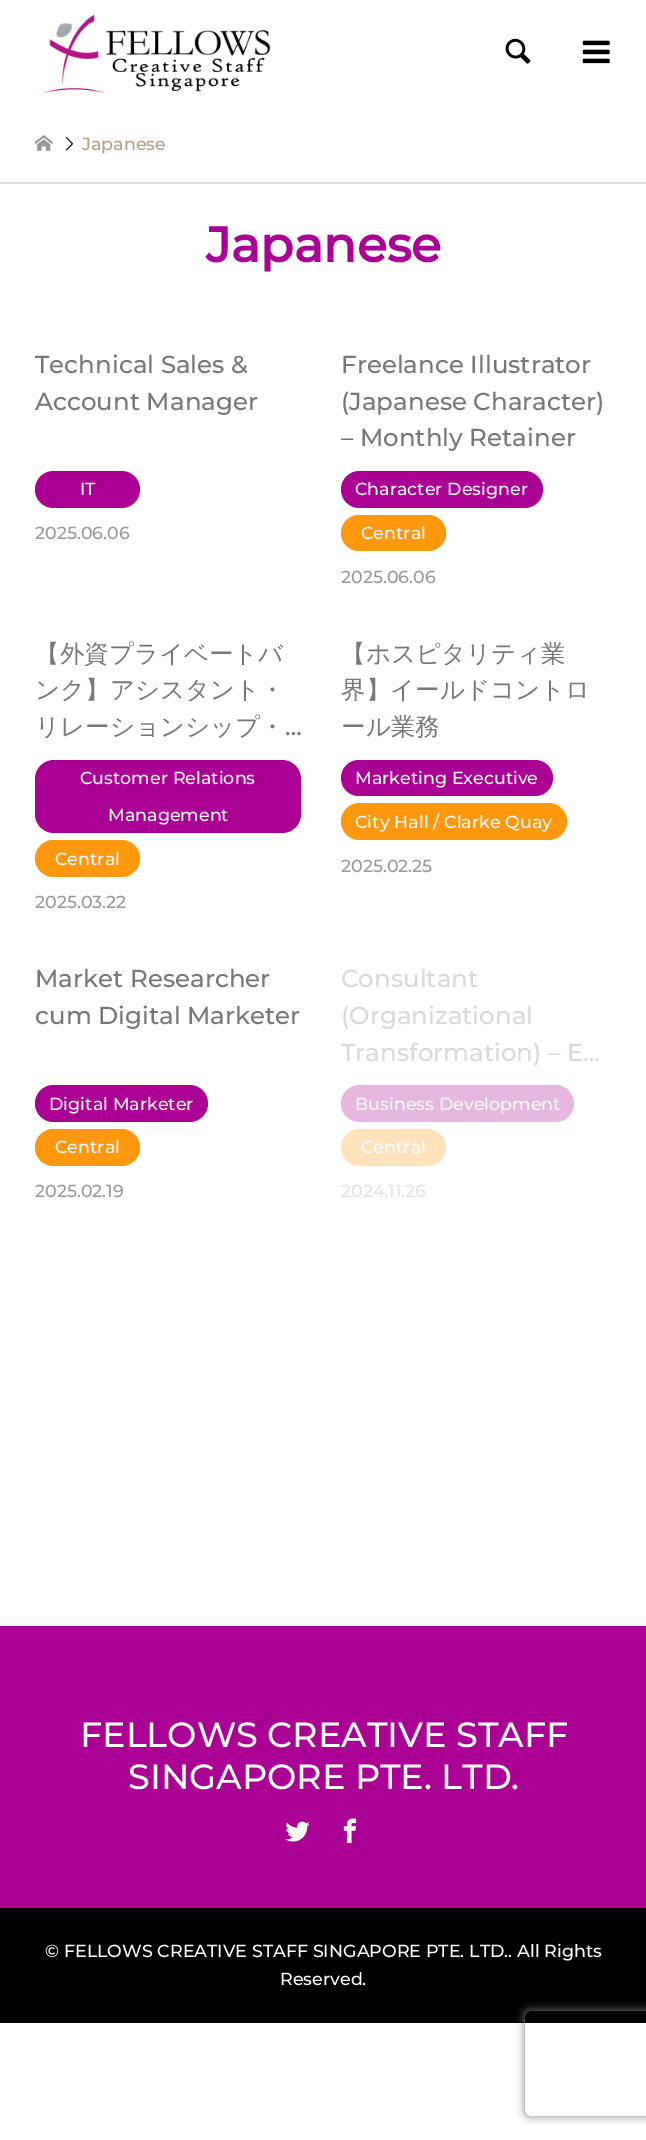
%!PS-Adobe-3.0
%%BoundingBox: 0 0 646 2140
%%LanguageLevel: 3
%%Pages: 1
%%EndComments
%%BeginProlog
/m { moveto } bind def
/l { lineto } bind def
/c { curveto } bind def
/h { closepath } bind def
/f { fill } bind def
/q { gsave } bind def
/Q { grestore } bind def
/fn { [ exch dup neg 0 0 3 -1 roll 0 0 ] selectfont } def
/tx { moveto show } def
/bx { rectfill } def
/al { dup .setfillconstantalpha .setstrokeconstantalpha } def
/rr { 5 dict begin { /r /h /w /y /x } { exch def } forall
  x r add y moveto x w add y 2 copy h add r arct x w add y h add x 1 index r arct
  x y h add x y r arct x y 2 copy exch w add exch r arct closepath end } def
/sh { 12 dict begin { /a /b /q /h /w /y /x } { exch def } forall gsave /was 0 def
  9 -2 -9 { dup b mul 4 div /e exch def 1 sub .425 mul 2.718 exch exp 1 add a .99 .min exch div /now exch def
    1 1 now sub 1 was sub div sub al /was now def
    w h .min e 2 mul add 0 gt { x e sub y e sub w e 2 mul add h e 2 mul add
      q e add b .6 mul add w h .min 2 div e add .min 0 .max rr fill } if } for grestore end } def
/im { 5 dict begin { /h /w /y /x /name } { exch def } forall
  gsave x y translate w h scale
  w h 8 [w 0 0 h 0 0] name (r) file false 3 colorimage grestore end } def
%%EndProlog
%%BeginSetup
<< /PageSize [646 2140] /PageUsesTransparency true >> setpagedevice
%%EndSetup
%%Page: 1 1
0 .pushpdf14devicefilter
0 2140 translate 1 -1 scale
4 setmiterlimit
1 setgray
0 0 646 2140 bx
(image0.raw) 43 14 228 80 im
(image1.raw) 505 38 26 26 im
(image2.raw) 582 40 28 24 im
0.867 setgray
0 182 646 2 bx
(image3.raw) 35 135 18 16 im
(image4.raw) 65 137 9 14 im
/Montserrat-Medium 17.5 fn
0.714 0.62 0.518 setrgbcolor
(Japanese) 82 150 tx
/Montserrat-Bold 49 fn
0.667 0 0.58 setrgbcolor
(Japanese) 206 262 tx
/Montserrat-Medium 24.5 fn
0.467 setgray
(Technical Sales &) 35 373 tx
(Account Manager) 35 410 tx
0.667 0 0.58 setrgbcolor
35 471 105 37 18.5 rr f
/Montserrat-Medium 17.5 fn
1 setgray
(IT) 80 495 tx
0.6 setgray
(2025.06.06) 35 539 tx
/Montserrat-Medium 24.5 fn
0.467 setgray
(Freelance Illustrator) 341 373 tx
(\(Japanese Character\)) 341 410 tx
(– Monthly Retainer) 341 446 tx
0.667 0 0.58 setrgbcolor
341 471 202 37 18.5 rr f
/Montserrat-Medium 17.5 fn
1 setgray
(Character Designer) 355 495 tx
1 0.592 0.059 setrgbcolor
341 515 105 36 18 rr f
1 setgray
(Central) 361 539 tx
0.6 setgray
(2025.06.06) 341 583 tx
/WenQuanYiZenHei-Medium 24.5 fn
0.467 setgray
(【外資プライベートバ) 35 662 tx
(ンク】アシスタント・) 35 698 tx
(リレーションシップ・) 35 735 tx
/Montserrat-Medium 24.5 fn
(…) 285 735 tx
0.667 0 0.58 setrgbcolor
35 760 266 73 19 rr f
/Montserrat-Medium 17.5 fn
1 setgray
(Customer Relations) 80 784 tx
(Management) 108 821 tx
1 0.592 0.059 setrgbcolor
35 840 105 37 18.5 rr f
1 setgray
(Central) 55 865 tx
0.6 setgray
(2025.03.22) 35 908 tx
/WenQuanYiZenHei-Medium 24.5 fn
0.467 setgray
(【ホスピタリティ業) 341 662 tx
(界】イールドコントロ) 341 698 tx
(ール業務) 341 735 tx
0.667 0 0.58 setrgbcolor
341 760 212 36 18 rr f
/Montserrat-Medium 17.5 fn
1 setgray
(Marketing Executive) 355 784 tx
1 0.592 0.059 setrgbcolor
341 803 226 37 18.5 rr f
1 setgray
(City Hall / Clarke Quay) 355 828 tx
0.6 setgray
(2025.02.25) 341 872 tx
/Montserrat-Medium 24.5 fn
0.467 setgray
(Market Researcher) 35 987 tx
(cum Digital Marketer) 35 1024 tx
0.667 0 0.58 setrgbcolor
35 1085 173 37 18.5 rr f
/Montserrat-Medium 17.5 fn
1 setgray
(Digital Marketer) 49 1110 tx
1 0.592 0.059 setrgbcolor
35 1129 105 37 18.5 rr f
1 setgray
(Central) 55 1153 tx
0.6 setgray
(2025.02.19) 35 1197 tx
/Montserrat-Medium 24.5 fn
0.847 setgray
(Consultant) 341 987 tx
(\(Organizational) 341 1024 tx
(Transformation\) – E…) 341 1061 tx
0.906 0.714 0.882 setrgbcolor
341 1085 233 37 18.5 rr f
/Montserrat-Medium 17.5 fn
1 setgray
(Business Development) 355 1110 tx
1 0.882 0.733 setrgbcolor
341 1129 105 37 18.5 rr f
1 setgray
(Central) 361 1153 tx
0.886 setgray
(2024.11.26) 341 1197 tx
0.667 0 0.58 setrgbcolor
0 1626 646 282 bx
/Montserrat-Medium 35 fn
1 setgray
(FELLOWS CREATIVE STAFF) 80 1747 tx
(SINGAPORE PTE. LTD.) 128 1789 tx
(image5.raw) 285 1821 25 21 im
(image6.raw) 343 1818 14 26 im
0 setgray
0 1908 646 115 bx
/Montserrat-Medium 17.5 fn
1 setgray
(© FELLOWS CREATIVE STAFF SINGAPORE PTE. LTD.. All Rights) 45 1957 tx
(Reserved.) 280 1985 tx
q
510 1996 m 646 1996 l 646 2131 l 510 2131 l h 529 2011 m 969 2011 l 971 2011 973 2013 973 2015 c 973 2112 l 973 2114 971 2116 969 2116 c 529 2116 l 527 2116 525 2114 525 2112 c 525 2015 l 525 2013 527 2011 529 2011 c h eoclip newpath
0.502 setgray
525 2011 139 105 4 4.5 1 sh
Q
.poppdf14devicefilter showpage
%%EOF
